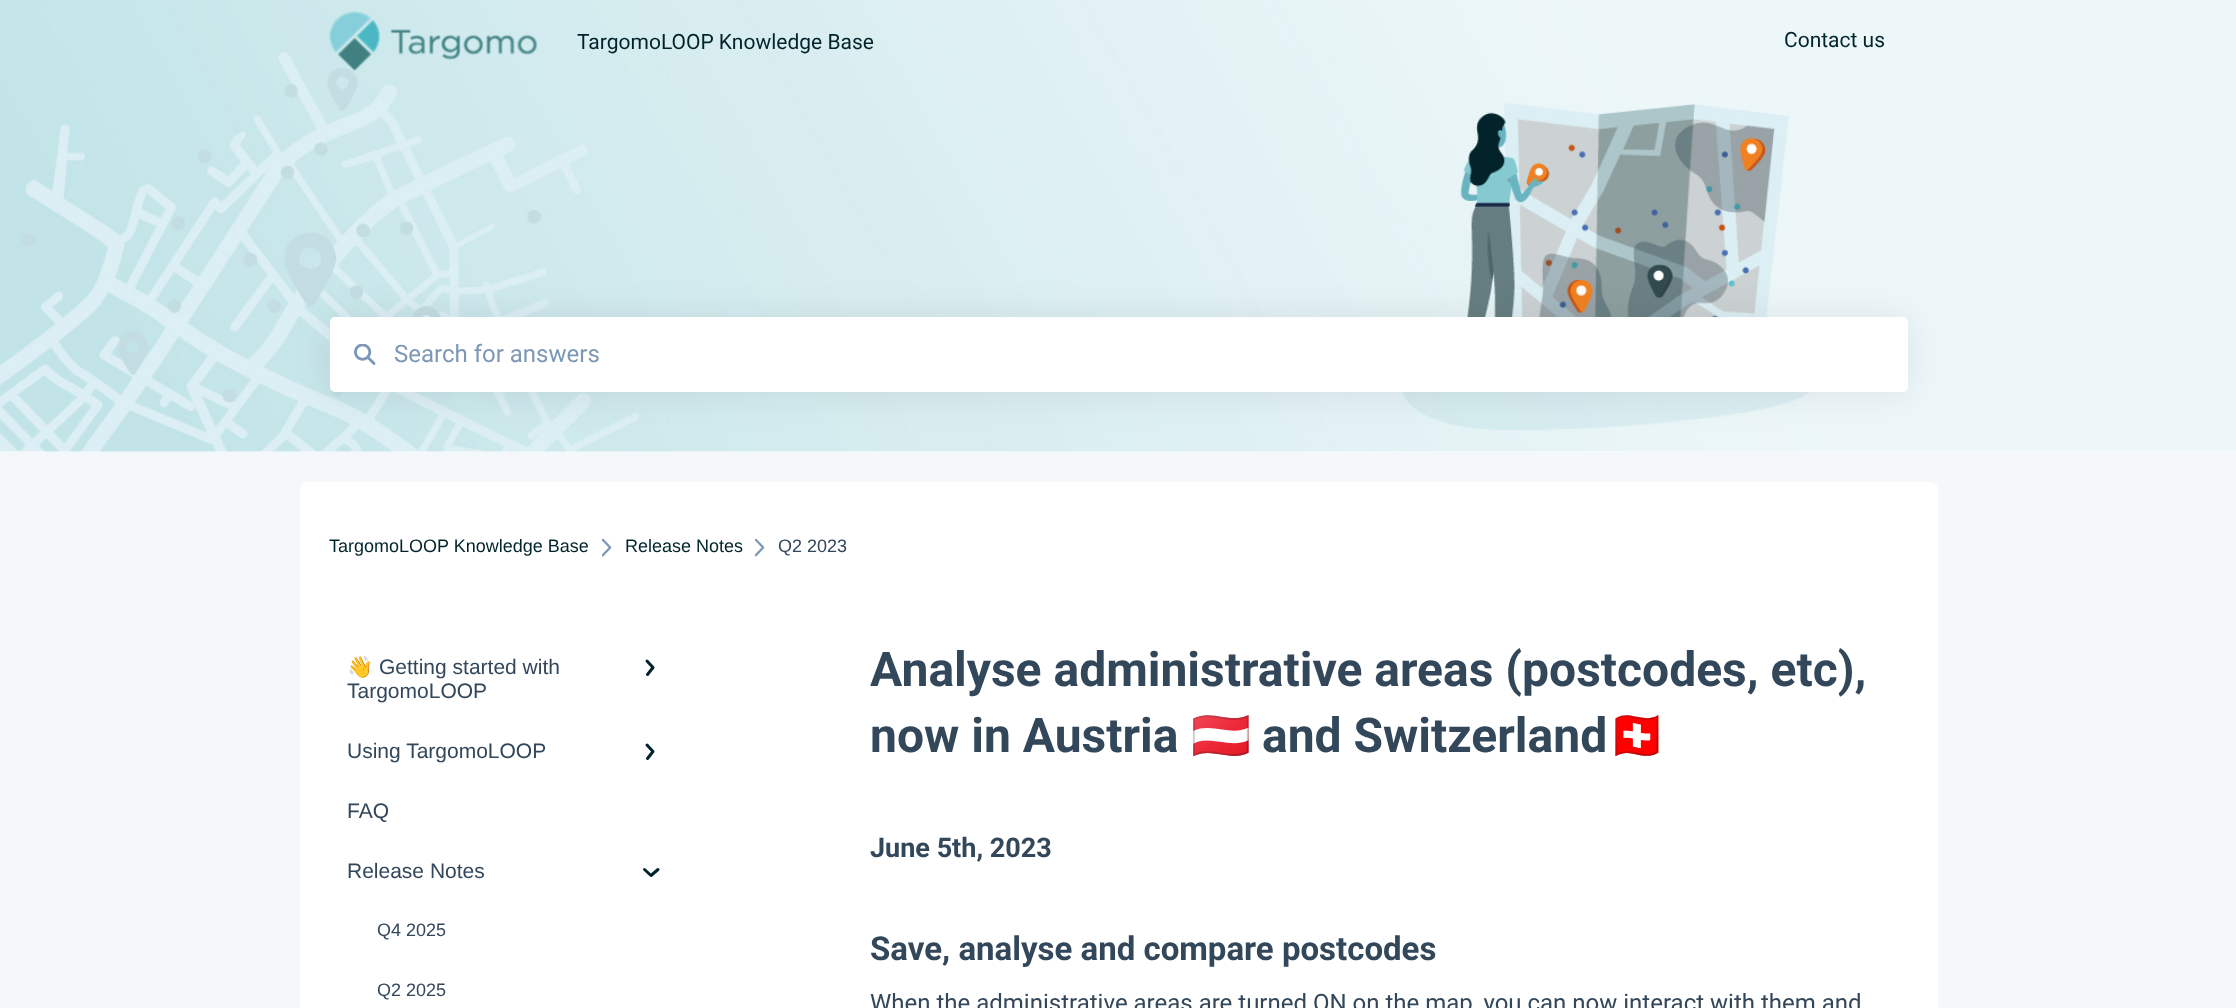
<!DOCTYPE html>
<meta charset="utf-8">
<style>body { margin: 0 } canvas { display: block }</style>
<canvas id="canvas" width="2236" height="1008"></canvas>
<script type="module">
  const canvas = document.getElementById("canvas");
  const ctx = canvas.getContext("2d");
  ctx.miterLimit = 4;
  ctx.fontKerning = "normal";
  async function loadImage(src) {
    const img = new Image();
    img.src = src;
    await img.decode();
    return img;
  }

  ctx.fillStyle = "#f5f8fa";
  ctx.fillRect(0, 0, 2236, 1008);
  ctx.fillStyle = "#ffffff";
  ctx.fillRect(0, 451, 2236, 1);
  ctx.drawImage(await loadImage("img2.png"), 0, 0, 2236, 452);
  ctx.drawImage(await loadImage("img1.png"), 329, 11, 209, 60);
  ctx.font = "21px Roboto";
  ctx.fillStyle = "#00242b";
  ctx.fillText("TargomoLOOP Knowledge Base", 577, 49);
  ctx.fillText("Contact us", 1784, 47);
  ctx.fillStyle = "rgba(0, 0, 0, 0.08)";
  ctx.filter = "blur(18px)";
  ctx.beginPath();
  ctx.roundRect(330, 318, 1578, 75, 5);
  ctx.fill();
  ctx.filter = "none";
  ctx.fillStyle = "#ffffff";
  ctx.beginPath();
  ctx.roundRect(330, 317, 1578, 75, 5);
  ctx.fill();
  ctx.drawImage(await loadImage("img3.png"), 354, 344, 22, 21);
  ctx.font = "24px Roboto";
  ctx.fillStyle = "#7c98b6";
  ctx.fillText("Search for answers", 394, 362);
  ctx.fillStyle = "#ffffff";
  ctx.beginPath();
  ctx.roundRect(300, 482, 1638, 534, 8);
  ctx.fill();
  ctx.font = "18px Liberation Sans";
  ctx.fillStyle = "#00242b";
  ctx.fillText("TargomoLOOP Knowledge Base", 329, 552);
  ctx.drawImage(await loadImage("img4.png"), 602, 539, 10, 18);
  ctx.fillText("Release Notes", 625, 552);
  ctx.drawImage(await loadImage("img4.png"), 755, 539, 10, 18);
  ctx.fillStyle = "#33475b";
  ctx.fillText("Q2 2023", 778, 552);
  ctx.font = "21px Noto Color Emoji";
  ctx.fillText("👋", 347, 674);
  ctx.font = "21px Liberation Sans";
  ctx.fillText("Getting started with", 379, 674);
  ctx.fillText("TargomoLOOP", 347, 698);
  ctx.beginPath();
  ctx.moveTo(647, 661);
  ctx.lineTo(653, 667.5);
  ctx.lineTo(647.5, 674.5);
  ctx.strokeStyle = "#00242b";
  ctx.lineWidth = 3;
  ctx.lineCap = "round";
  ctx.lineJoin = "round";
  ctx.stroke();
  ctx.fillText("Using TargomoLOOP", 347, 758);
  ctx.beginPath();
  ctx.moveTo(647, 745);
  ctx.lineTo(653, 751.5);
  ctx.lineTo(647.5, 758.5);
  ctx.stroke();
  ctx.fillText("FAQ", 347, 818);
  ctx.fillText("Release Notes", 347, 878);
  ctx.beginPath();
  ctx.moveTo(658, 869.5);
  ctx.lineTo(651, 875.5);
  ctx.lineTo(644.5, 869.5);
  ctx.stroke();
  ctx.font = "18px Liberation Sans";
  ctx.fillText("Q4 2025", 377, 936);
  ctx.fillText("Q2 2025", 377, 996);
  ctx.font = "bold 48px Roboto";
  ctx.fillText("Analyse administrative areas (postcodes, etc),", 870, 686);
  ctx.fillText("now in Austria", 870, 752);
  ctx.font = "bold 48px Noto Color Emoji";
  ctx.fillText("🇦🇹", 1191, 752);
  ctx.font = "bold 48px Roboto";
  ctx.fillText("and Switzerland", 1262, 752);
  ctx.font = "bold 48px Noto Color Emoji";
  ctx.fillText("🇨🇭", 1607, 752);
  ctx.font = "bold 27px Roboto";
  ctx.fillText("June 5th, 2023", 870, 857);
  ctx.font = "bold 33px Roboto";
  ctx.fillText("Save, analyse and compare postcodes", 870, 960);
  ctx.font = "24px Roboto";
  ctx.fillText("When the administrative areas are turned ON on the map, you can now interact with them and", 870, 1011);
</script>
